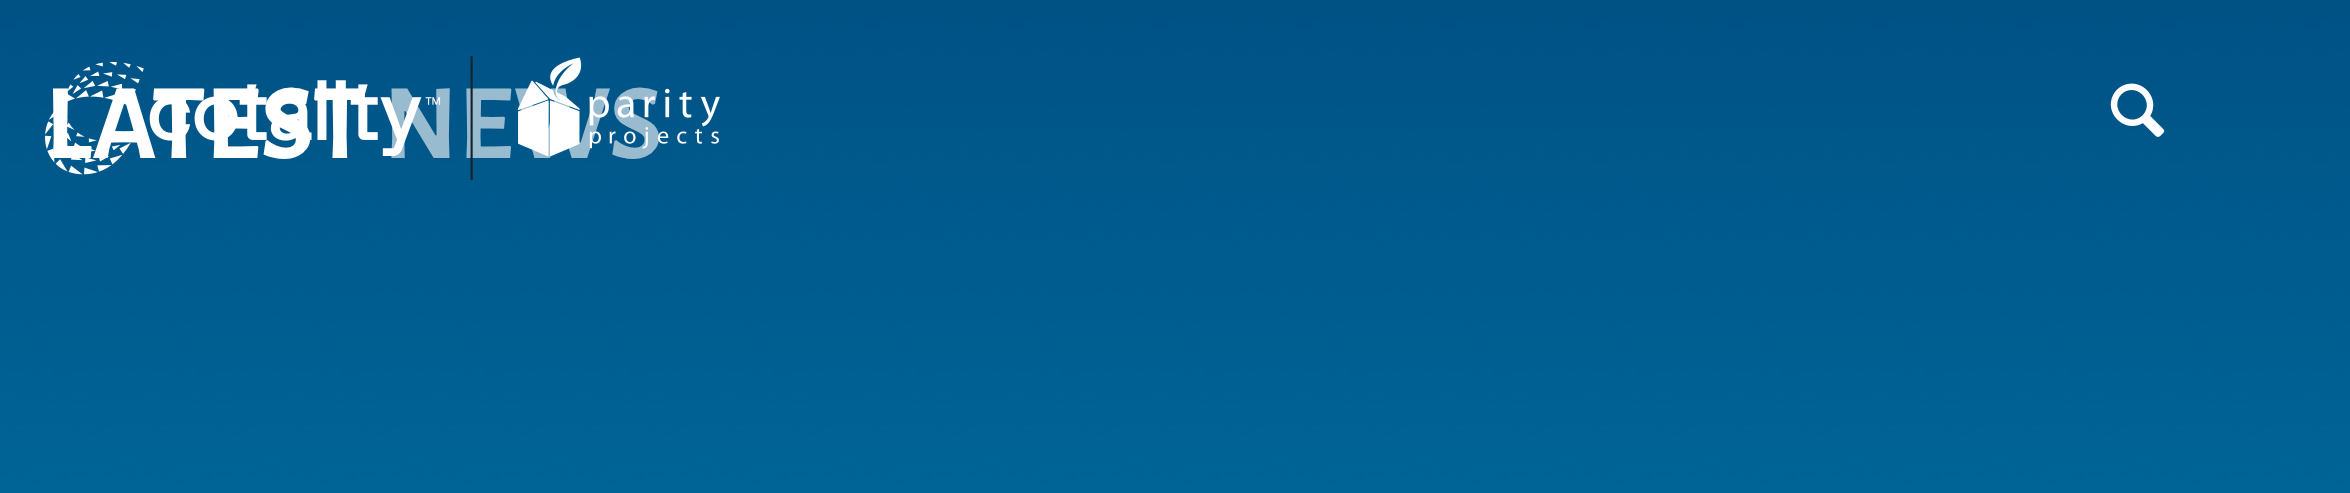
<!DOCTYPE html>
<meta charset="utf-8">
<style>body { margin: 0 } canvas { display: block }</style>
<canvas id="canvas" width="2350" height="493"></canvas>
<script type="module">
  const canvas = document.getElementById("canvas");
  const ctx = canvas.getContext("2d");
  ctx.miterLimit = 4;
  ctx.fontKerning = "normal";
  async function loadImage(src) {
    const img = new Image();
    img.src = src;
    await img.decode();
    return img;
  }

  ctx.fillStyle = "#ffffff";
  ctx.fillRect(0, 0, 2350, 493);
  ctx.drawImage(await loadImage("img3.png"), 0, 0, 2350, 493);
  ctx.font = "bold 108px Alegreya Sans";
  ctx.fillText("LATEST", 45, 158);
  ctx.fillStyle = "#99bbd0";
  ctx.fillText("NEWS", 383, 158);
  ctx.drawImage(await loadImage("img1.png"), 45, 56, 675, 124);
  ctx.drawImage(await loadImage("img2.png"), 2110, 83, 55, 54);
</script>
